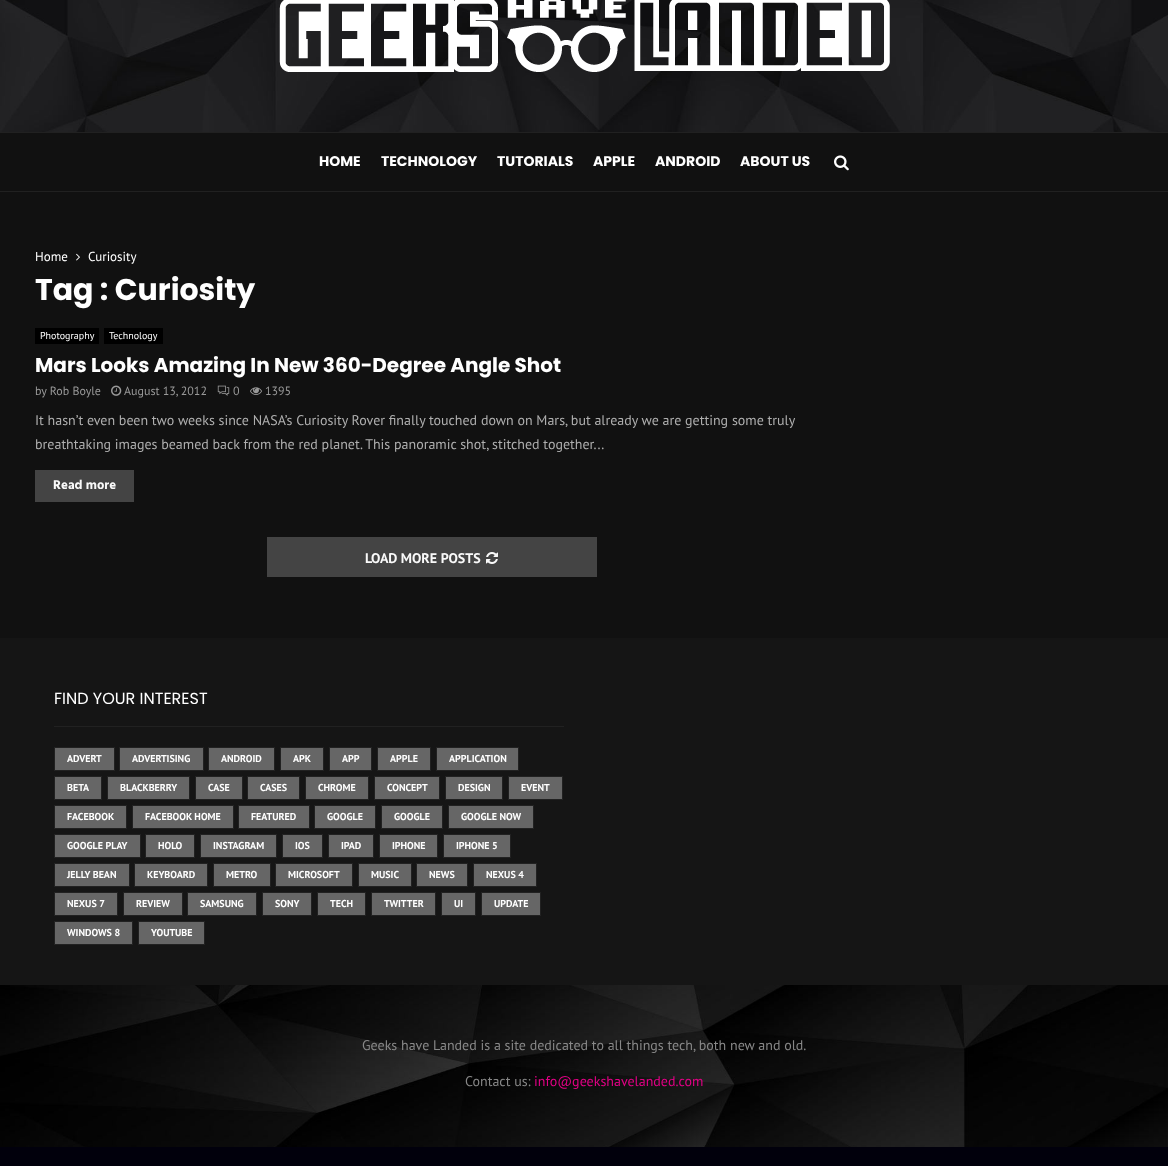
<!DOCTYPE html>
<meta charset="utf-8">
<style>body { margin: 0 } canvas { display: block }</style>
<canvas id="canvas" width="1168" height="1166"></canvas>
<script type="module">
  const canvas = document.getElementById("canvas");
  const ctx = canvas.getContext("2d");
  ctx.miterLimit = 4;
  ctx.fontKerning = "normal";
  async function loadImage(src) {
    const img = new Image();
    img.src = src;
    await img.decode();
    return img;
  }

  ctx.fillStyle = "#111111";
  ctx.fillRect(0, 0, 1168, 1166);
  ctx.drawImage(await loadImage("img1.png"), 0, 0, 1168, 132);
  ctx.drawImage(await loadImage("img2.png"), 279, 0, 611, 72);
  ctx.fillStyle = "#212121";
  ctx.fillRect(0, 191, 1168, 1);
  ctx.fillRect(0, 132, 1168, 1);
  ctx.font = "bold 14px Poppins";
  ctx.fillStyle = "#ffffff";
  ctx.fillText("HOME", 319, 166);
  ctx.fillText("TECHNOLOGY", 381, 166);
  ctx.fillText("TUTORIALS", 497, 166);
  ctx.fillText("APPLE", 593, 166);
  ctx.fillText("ANDROID", 655, 166);
  ctx.fillText("ABOUT US", 740, 166);
  ctx.drawImage(await loadImage("img3.png"), 834, 155, 15, 16);
  ctx.font = "13px PT Sans";
  ctx.fillText("Home", 35, 261);
  ctx.drawImage(await loadImage("img4.png"), 76, 253, 4, 8);
  ctx.fillText("Curiosity", 88, 261);
  ctx.font = "bold 30px Poppins";
  ctx.fillText("Tag : Curiosity", 35, 300);
  ctx.fillStyle = "#000000";
  ctx.fillRect(35, 328, 64, 16);
  ctx.font = "10px PT Sans";
  ctx.fillStyle = "#ffffff";
  ctx.fillText("Photography", 40, 339);
  ctx.fillStyle = "#000000";
  ctx.fillRect(104, 328, 59, 16);
  ctx.fillStyle = "#ffffff";
  ctx.fillText("Technology", 109, 339);
  ctx.font = "bold 20px Poppins";
  ctx.fillText("Mars Looks Amazing In New 360-Degree Angle Shot", 35, 372);
  ctx.font = "12px PT Sans";
  ctx.fillStyle = "#999999";
  ctx.fillText("by Rob Boyle", 35, 395);
  ctx.drawImage(await loadImage("img5.png"), 111, 385, 11, 11);
  ctx.fillText("August 13, 2012", 124, 395);
  ctx.drawImage(await loadImage("img6.png"), 217, 385, 13, 11);
  ctx.fillText("0", 233, 395);
  ctx.drawImage(await loadImage("img7.png"), 250, 387, 12, 8);
  ctx.fillText("1395", 265, 395);
  ctx.font = "14px PT Sans";
  ctx.fillStyle = "#afafaf";
  ctx.fillText("It hasn’t even been two weeks since NASA’s Curiosity Rover finally touched down on Mars, but already we are getting some truly", 35, 425);
  ctx.fillText("breathtaking images beamed back from the red planet. This panoramic shot, stitched together...", 35, 449);
  ctx.fillStyle = "#444444";
  ctx.fillRect(35, 470, 99, 32);
  ctx.font = "bold 13px Hind";
  ctx.fillStyle = "#f9f9f9";
  ctx.fillText("Read more", 53, 489);
  ctx.fillStyle = "#444444";
  ctx.fillRect(267, 537, 330, 40);
  ctx.font = "bold 14px PT Sans";
  ctx.fillStyle = "#f9f9f9";
  ctx.fillText("LOAD MORE POSTS", 365, 563);
  ctx.drawImage(await loadImage("img8.png"), 486, 552, 12, 12);
  ctx.drawImage(await loadImage("img9.png"), 0, 985, 1168, 162);
  ctx.fillStyle = "#151515";
  ctx.fillRect(0, 638, 1168, 347);
  ctx.fillStyle = "#212121";
  ctx.fillRect(54, 726, 510, 1);
  ctx.font = "16px Poppins";
  ctx.fillStyle = "#ffffff";
  ctx.fillText("FIND YOUR INTEREST", 54, 704);
  ctx.fillStyle = "#666666";
  ctx.beginPath();
  ctx.rect(54.5, 747.5, 60, 23);
  ctx.fill();
  ctx.strokeStyle = "#212121";
  ctx.stroke();
  ctx.font = "bold 10px PT Sans";
  ctx.fillStyle = "#ffffff";
  ctx.fillText("ADVERT", 67, 762);
  ctx.fillStyle = "#666666";
  ctx.beginPath();
  ctx.rect(119.5, 747.5, 84, 23);
  ctx.fill();
  ctx.stroke();
  ctx.fillStyle = "#ffffff";
  ctx.fillText("ADVERTISING", 132, 762);
  ctx.fillStyle = "#666666";
  ctx.beginPath();
  ctx.rect(208.5, 747.5, 66, 23);
  ctx.fill();
  ctx.stroke();
  ctx.fillStyle = "#ffffff";
  ctx.fillText("ANDROID", 221, 762);
  ctx.fillStyle = "#666666";
  ctx.beginPath();
  ctx.rect(280.5, 747.5, 43, 23);
  ctx.fill();
  ctx.stroke();
  ctx.fillStyle = "#ffffff";
  ctx.fillText("APK", 293, 762);
  ctx.fillStyle = "#666666";
  ctx.beginPath();
  ctx.rect(329.5, 747.5, 42, 23);
  ctx.fill();
  ctx.stroke();
  ctx.fillStyle = "#ffffff";
  ctx.fillText("APP", 342, 762);
  ctx.fillStyle = "#666666";
  ctx.beginPath();
  ctx.rect(377.5, 747.5, 53, 23);
  ctx.fill();
  ctx.stroke();
  ctx.fillStyle = "#ffffff";
  ctx.fillText("APPLE", 390, 762);
  ctx.fillStyle = "#666666";
  ctx.beginPath();
  ctx.rect(436.5, 747.5, 82, 23);
  ctx.fill();
  ctx.stroke();
  ctx.fillStyle = "#ffffff";
  ctx.fillText("APPLICATION", 449, 762);
  ctx.fillStyle = "#666666";
  ctx.beginPath();
  ctx.rect(54.5, 776.5, 47, 23);
  ctx.fill();
  ctx.stroke();
  ctx.fillStyle = "#ffffff";
  ctx.fillText("BETA", 67, 791);
  ctx.fillStyle = "#666666";
  ctx.beginPath();
  ctx.rect(107.5, 776.5, 82, 23);
  ctx.fill();
  ctx.stroke();
  ctx.fillStyle = "#ffffff";
  ctx.fillText("BLACKBERRY", 120, 791);
  ctx.fillStyle = "#666666";
  ctx.beginPath();
  ctx.rect(195.5, 776.5, 47, 23);
  ctx.fill();
  ctx.stroke();
  ctx.fillStyle = "#ffffff";
  ctx.fillText("CASE", 208, 791);
  ctx.fillStyle = "#666666";
  ctx.beginPath();
  ctx.rect(247.5, 776.5, 52, 23);
  ctx.fill();
  ctx.stroke();
  ctx.fillStyle = "#ffffff";
  ctx.fillText("CASES", 260, 791);
  ctx.fillStyle = "#666666";
  ctx.beginPath();
  ctx.rect(305.5, 776.5, 63, 23);
  ctx.fill();
  ctx.stroke();
  ctx.fillStyle = "#ffffff";
  ctx.fillText("CHROME", 318, 791);
  ctx.fillStyle = "#666666";
  ctx.beginPath();
  ctx.rect(374.5, 776.5, 65, 23);
  ctx.fill();
  ctx.stroke();
  ctx.fillStyle = "#ffffff";
  ctx.fillText("CONCEPT", 387, 791);
  ctx.fillStyle = "#666666";
  ctx.beginPath();
  ctx.rect(445.5, 776.5, 57, 23);
  ctx.fill();
  ctx.stroke();
  ctx.fillStyle = "#ffffff";
  ctx.fillText("DESIGN", 458, 791);
  ctx.fillStyle = "#666666";
  ctx.beginPath();
  ctx.rect(508.5, 776.5, 54, 23);
  ctx.fill();
  ctx.stroke();
  ctx.fillStyle = "#ffffff";
  ctx.fillText("EVENT", 521, 791);
  ctx.fillStyle = "#666666";
  ctx.beginPath();
  ctx.rect(54.5, 805.5, 72, 23);
  ctx.fill();
  ctx.stroke();
  ctx.fillStyle = "#ffffff";
  ctx.fillText("FACEBOOK", 67, 820);
  ctx.fillStyle = "#666666";
  ctx.beginPath();
  ctx.rect(132.5, 805.5, 101, 23);
  ctx.fill();
  ctx.stroke();
  ctx.fillStyle = "#ffffff";
  ctx.fillText("FACEBOOK HOME", 145, 820);
  ctx.fillStyle = "#666666";
  ctx.beginPath();
  ctx.rect(238.5, 805.5, 71, 23);
  ctx.fill();
  ctx.stroke();
  ctx.fillStyle = "#ffffff";
  ctx.fillText("FEATURED", 251, 820);
  ctx.fillStyle = "#666666";
  ctx.beginPath();
  ctx.rect(314.5, 805.5, 61, 23);
  ctx.fill();
  ctx.stroke();
  ctx.fillStyle = "#ffffff";
  ctx.fillText("GOOGLE", 327, 820);
  ctx.fillStyle = "#666666";
  ctx.beginPath();
  ctx.rect(381.5, 805.5, 61, 23);
  ctx.fill();
  ctx.stroke();
  ctx.fillStyle = "#ffffff";
  ctx.fillText("GOOGLE", 394, 820);
  ctx.fillStyle = "#666666";
  ctx.beginPath();
  ctx.rect(448.5, 805.5, 85, 23);
  ctx.fill();
  ctx.stroke();
  ctx.fillStyle = "#ffffff";
  ctx.fillText("GOOGLE NOW", 461, 820);
  ctx.fillStyle = "#666666";
  ctx.beginPath();
  ctx.rect(54.5, 834.5, 86, 23);
  ctx.fill();
  ctx.stroke();
  ctx.fillStyle = "#ffffff";
  ctx.fillText("GOOGLE PLAY", 67, 849);
  ctx.fillStyle = "#666666";
  ctx.beginPath();
  ctx.rect(145.5, 834.5, 49, 23);
  ctx.fill();
  ctx.stroke();
  ctx.fillStyle = "#ffffff";
  ctx.fillText("HOLO", 158, 849);
  ctx.fillStyle = "#666666";
  ctx.beginPath();
  ctx.rect(200.5, 834.5, 76, 23);
  ctx.fill();
  ctx.stroke();
  ctx.fillStyle = "#ffffff";
  ctx.fillText("INSTAGRAM", 213, 849);
  ctx.fillStyle = "#666666";
  ctx.beginPath();
  ctx.rect(282.5, 834.5, 40, 23);
  ctx.fill();
  ctx.stroke();
  ctx.fillStyle = "#ffffff";
  ctx.fillText("IOS", 295, 849);
  ctx.fillStyle = "#666666";
  ctx.beginPath();
  ctx.rect(328.5, 834.5, 45, 23);
  ctx.fill();
  ctx.stroke();
  ctx.fillStyle = "#ffffff";
  ctx.fillText("IPAD", 341, 849);
  ctx.fillStyle = "#666666";
  ctx.beginPath();
  ctx.rect(379.5, 834.5, 58, 23);
  ctx.fill();
  ctx.stroke();
  ctx.fillStyle = "#ffffff";
  ctx.fillText("IPHONE", 392, 849);
  ctx.fillStyle = "#666666";
  ctx.beginPath();
  ctx.rect(443.5, 834.5, 67, 23);
  ctx.fill();
  ctx.stroke();
  ctx.fillStyle = "#ffffff";
  ctx.fillText("IPHONE 5", 456, 849);
  ctx.fillStyle = "#666666";
  ctx.beginPath();
  ctx.rect(54.5, 863.5, 75, 23);
  ctx.fill();
  ctx.stroke();
  ctx.fillStyle = "#ffffff";
  ctx.fillText("JELLY BEAN", 67, 878);
  ctx.fillStyle = "#666666";
  ctx.beginPath();
  ctx.rect(134.5, 863.5, 73, 23);
  ctx.fill();
  ctx.stroke();
  ctx.fillStyle = "#ffffff";
  ctx.fillText("KEYBOARD", 147, 878);
  ctx.fillStyle = "#666666";
  ctx.beginPath();
  ctx.rect(213.5, 863.5, 57, 23);
  ctx.fill();
  ctx.stroke();
  ctx.fillStyle = "#ffffff";
  ctx.fillText("METRO", 226, 878);
  ctx.fillStyle = "#666666";
  ctx.beginPath();
  ctx.rect(275.5, 863.5, 77, 23);
  ctx.fill();
  ctx.stroke();
  ctx.fillStyle = "#ffffff";
  ctx.fillText("MICROSOFT", 288, 878);
  ctx.fillStyle = "#666666";
  ctx.beginPath();
  ctx.rect(358.5, 863.5, 53, 23);
  ctx.fill();
  ctx.stroke();
  ctx.fillStyle = "#ffffff";
  ctx.fillText("MUSIC", 371, 878);
  ctx.fillStyle = "#666666";
  ctx.beginPath();
  ctx.rect(416.5, 863.5, 51, 23);
  ctx.fill();
  ctx.stroke();
  ctx.fillStyle = "#ffffff";
  ctx.fillText("NEWS", 429, 878);
  ctx.fillStyle = "#666666";
  ctx.beginPath();
  ctx.rect(473.5, 863.5, 63, 23);
  ctx.fill();
  ctx.stroke();
  ctx.fillStyle = "#ffffff";
  ctx.fillText("NEXUS 4", 486, 878);
  ctx.fillStyle = "#666666";
  ctx.beginPath();
  ctx.rect(54.5, 892.5, 63, 23);
  ctx.fill();
  ctx.stroke();
  ctx.fillStyle = "#ffffff";
  ctx.fillText("NEXUS 7", 67, 907);
  ctx.fillStyle = "#666666";
  ctx.beginPath();
  ctx.rect(123.5, 892.5, 59, 23);
  ctx.fill();
  ctx.stroke();
  ctx.fillStyle = "#ffffff";
  ctx.fillText("REVIEW", 136, 907);
  ctx.fillStyle = "#666666";
  ctx.beginPath();
  ctx.rect(187.5, 892.5, 69, 23);
  ctx.fill();
  ctx.stroke();
  ctx.fillStyle = "#ffffff";
  ctx.fillText("SAMSUNG", 200, 907);
  ctx.fillStyle = "#666666";
  ctx.beginPath();
  ctx.rect(262.5, 892.5, 49, 23);
  ctx.fill();
  ctx.stroke();
  ctx.fillStyle = "#ffffff";
  ctx.fillText("SONY", 275, 907);
  ctx.fillStyle = "#666666";
  ctx.beginPath();
  ctx.rect(317.5, 892.5, 48, 23);
  ctx.fill();
  ctx.stroke();
  ctx.fillStyle = "#ffffff";
  ctx.fillText("TECH", 330, 907);
  ctx.fillStyle = "#666666";
  ctx.beginPath();
  ctx.rect(371.5, 892.5, 64, 23);
  ctx.fill();
  ctx.stroke();
  ctx.fillStyle = "#ffffff";
  ctx.fillText("TWITTER", 384, 907);
  ctx.fillStyle = "#666666";
  ctx.beginPath();
  ctx.rect(441.5, 892.5, 34, 23);
  ctx.fill();
  ctx.stroke();
  ctx.fillStyle = "#ffffff";
  ctx.fillText("UI", 454, 907);
  ctx.fillStyle = "#666666";
  ctx.beginPath();
  ctx.rect(481.5, 892.5, 59, 23);
  ctx.fill();
  ctx.stroke();
  ctx.fillStyle = "#ffffff";
  ctx.fillText("UPDATE", 494, 907);
  ctx.fillStyle = "#666666";
  ctx.beginPath();
  ctx.rect(54.5, 921.5, 78, 23);
  ctx.fill();
  ctx.stroke();
  ctx.fillStyle = "#ffffff";
  ctx.fillText("WINDOWS 8", 67, 936);
  ctx.fillStyle = "#666666";
  ctx.beginPath();
  ctx.rect(138.5, 921.5, 66, 23);
  ctx.fill();
  ctx.stroke();
  ctx.fillStyle = "#ffffff";
  ctx.fillText("YOUTUBE", 151, 936);
  ctx.font = "14px PT Sans";
  ctx.fillStyle = "#888888";
  ctx.fillText("Geeks have Landed is a site dedicated to all things tech, both new and old.", 362, 1050);
  ctx.fillText("Contact us:", 465, 1086);
  ctx.fillStyle = "#e20085";
  ctx.fillText("info@geekshavelanded.com", 534, 1086);
  ctx.fillStyle = "#01000c";
  ctx.fillRect(0, 1147, 1168, 19);
</script>
